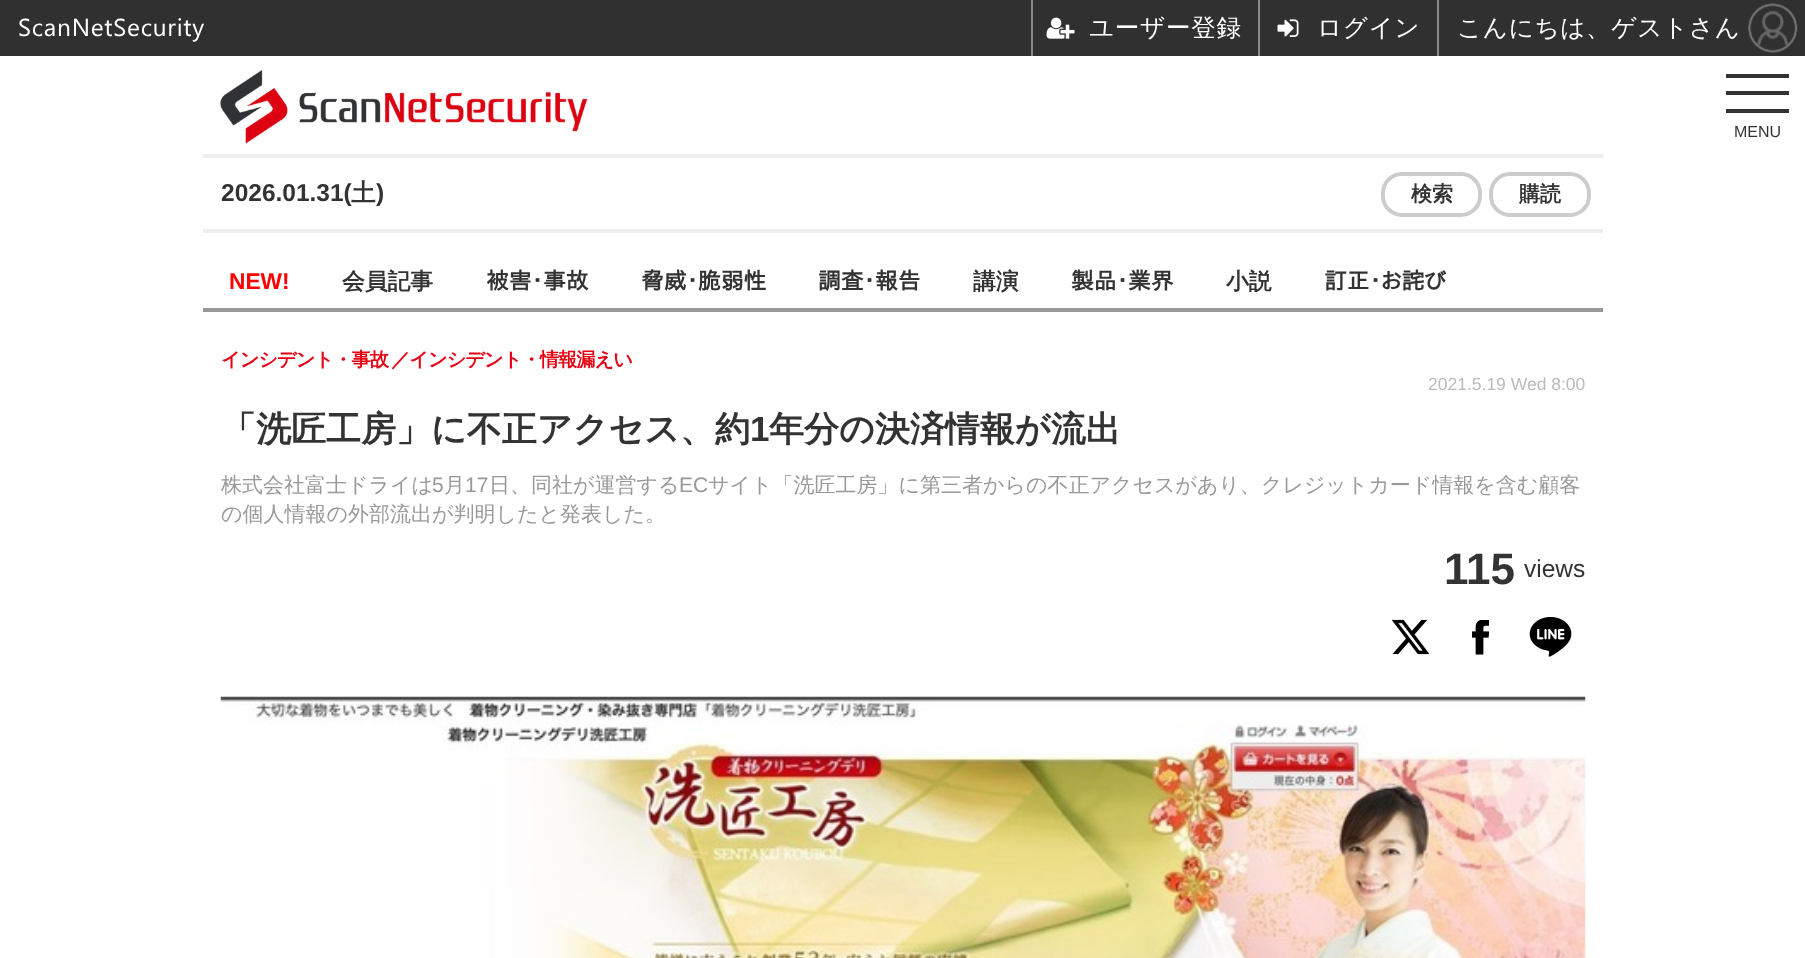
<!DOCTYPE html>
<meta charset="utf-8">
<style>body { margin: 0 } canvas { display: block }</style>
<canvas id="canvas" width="1805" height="958"></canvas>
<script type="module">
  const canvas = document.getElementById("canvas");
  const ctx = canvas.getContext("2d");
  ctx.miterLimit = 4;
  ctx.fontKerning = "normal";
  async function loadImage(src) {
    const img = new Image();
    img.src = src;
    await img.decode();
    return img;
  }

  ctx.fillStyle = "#ffffff";
  ctx.fillRect(0, 0, 1805, 958);
  ctx.fillStyle = "#303030";
  ctx.fillRect(0, 0, 1805, 56);
  ctx.letterSpacing = "0.75px";
  ctx.font = "24.5px Segoe UI";
  ctx.fillStyle = "#ffffff";
  ctx.fillText("ScanNetSecurity", 18, 36);
  ctx.fillStyle = "#888888";
  ctx.fillRect(1031, 0, 2, 56);
  ctx.drawImage(await loadImage("img1.png"), 1046, 17, 29, 22);
  ctx.font = "500 24.5px WenQuanYi Zen Hei";
  ctx.fillStyle = "#ffffff";
  ctx.fillText("ユーザー登録", 1089, 36);
  ctx.fillStyle = "#888888";
  ctx.fillRect(1437, 0, 2, 56);
  ctx.fillRect(1258, 0, 2, 56);
  ctx.drawImage(await loadImage("img2.png"), 1277, 19, 22, 18);
  ctx.fillStyle = "#ffffff";
  ctx.fillText("ログイン", 1317, 36);
  ctx.fillText("こんにちは、ゲストさん", 1457, 36);
  ctx.drawImage(await loadImage("img3.png"), 1748, 3, 50, 50);
  ctx.drawImage(await loadImage("img4.png"), 220, 70, 368, 74);
  ctx.fillStyle = "#333333";
  ctx.fillRect(1726, 74, 63, 4);
  ctx.fillRect(1726, 91, 63, 4);
  ctx.fillRect(1726, 109, 63, 4);
  ctx.letterSpacing = "0px";
  ctx.font = "16px Liberation Sans";
  ctx.fillText("MENU", 1734, 137);
  ctx.fillStyle = "#eeeeee";
  ctx.fillRect(203, 154, 1400, 4);
  ctx.fillRect(203, 229, 1400, 4);
  ctx.font = "bold 24.5px Liberation Sans";
  ctx.fillStyle = "#333333";
  ctx.fillText("2026.01.31(", 221, 201);
  ctx.font = "bold 24.5px WenQuanYi Zen Hei";
  ctx.fillText("土", 351, 201);
  ctx.font = "bold 24.5px Liberation Sans";
  ctx.fillText(")", 376, 201);
  ctx.beginPath();
  ctx.roundRect(1383, 174, 97, 41, 19);
  ctx.strokeStyle = "#cccccc";
  ctx.lineWidth = 4;
  ctx.stroke();
  ctx.font = "bold 21px WenQuanYi Zen Hei";
  ctx.fillText("検索", 1411, 201);
  ctx.beginPath();
  ctx.roundRect(1491, 174, 98, 41, 19);
  ctx.stroke();
  ctx.fillText("購読", 1519, 201);
  ctx.fillStyle = "#999999";
  ctx.fillRect(203, 308, 1400, 4);
  ctx.font = "bold 22.75px Liberation Sans";
  ctx.fillStyle = "#ff0000";
  ctx.fillText("NEW!", 229, 289);
  ctx.font = "bold 22.75px WenQuanYi Zen Hei";
  ctx.fillStyle = "#333333";
  ctx.fillText("会員記事", 342, 289);
  ctx.font = "bold 22.75px IPAPGothic";
  ctx.fillText("被害･事故", 486, 289);
  ctx.fillText("脅威･脆弱性", 641, 289);
  ctx.fillText("調査･報告", 818, 289);
  ctx.font = "bold 22.75px WenQuanYi Zen Hei";
  ctx.fillText("講演", 973, 289);
  ctx.font = "bold 22.75px IPAPGothic";
  ctx.fillText("製品･業界", 1071, 289);
  ctx.font = "bold 22.75px WenQuanYi Zen Hei";
  ctx.fillText("小説", 1226, 289);
  ctx.font = "bold 22.75px IPAPGothic";
  ctx.fillText("訂正･お詫び", 1324, 289);
  ctx.letterSpacing = "-1px";
  ctx.font = "bold 19.25px WenQuanYi Zen Hei";
  ctx.fillStyle = "#e60012";
  ctx.fillText("インシデント・事故", 221, 366);
  ctx.fillText("／インシデント・情報漏えい", 391, 366);
  ctx.letterSpacing = "0px";
  ctx.font = "17.5px Liberation Sans";
  ctx.fillStyle = "#bbbbbb";
  ctx.fillText("2021.5.19 Wed 8:00", 1428, 390);
  ctx.font = "bold 35px WenQuanYi Zen Hei";
  ctx.fillStyle = "#333333";
  ctx.fillText("「洗匠工房」に不正アクセス、約", 221, 441);
  ctx.font = "bold 35px Liberation Sans";
  ctx.fillText("1", 750, 441);
  ctx.font = "bold 35px WenQuanYi Zen Hei";
  ctx.fillText("年分の決済情報が流出", 769, 441);
  ctx.font = "500 21px WenQuanYi Zen Hei";
  ctx.fillStyle = "#999999";
  ctx.fillText("株式会社富士ドライは", 221, 492);
  ctx.font = "21px Liberation Sans";
  ctx.fillText("5", 432, 492);
  ctx.font = "500 21px WenQuanYi Zen Hei";
  ctx.fillText("月", 444, 492);
  ctx.font = "21px Liberation Sans";
  ctx.fillText("17", 465, 492);
  ctx.font = "500 21px WenQuanYi Zen Hei";
  ctx.fillText("日、同社が運営する", 489, 492);
  ctx.font = "21px Liberation Sans";
  ctx.fillText("EC", 679, 492);
  ctx.font = "500 21px WenQuanYi Zen Hei";
  ctx.fillText("サイト「洗匠工房」に第三者からの不正アクセスがあり、クレジットカード情報を含む顧客", 708, 492);
  ctx.fillText("の個人情報の外部流出が判明したと発表した。", 221, 521);
  ctx.font = "bold 44px Liberation Sans";
  ctx.fillStyle = "#333333";
  ctx.fillText("115", 1444, 584);
  ctx.font = "24.5px Liberation Sans";
  ctx.fillText("views", 1524, 577);
  ctx.drawImage(await loadImage("img5.png"), 1391, 619, 39, 36);
  ctx.drawImage(await loadImage("img6.png"), 1472, 620, 17, 35);
  ctx.drawImage(await loadImage("img7.png"), 1529, 617, 43, 40);
  ctx.drawImage(await loadImage("img8.png"), 220, 696, 1366, 262);
</script>
